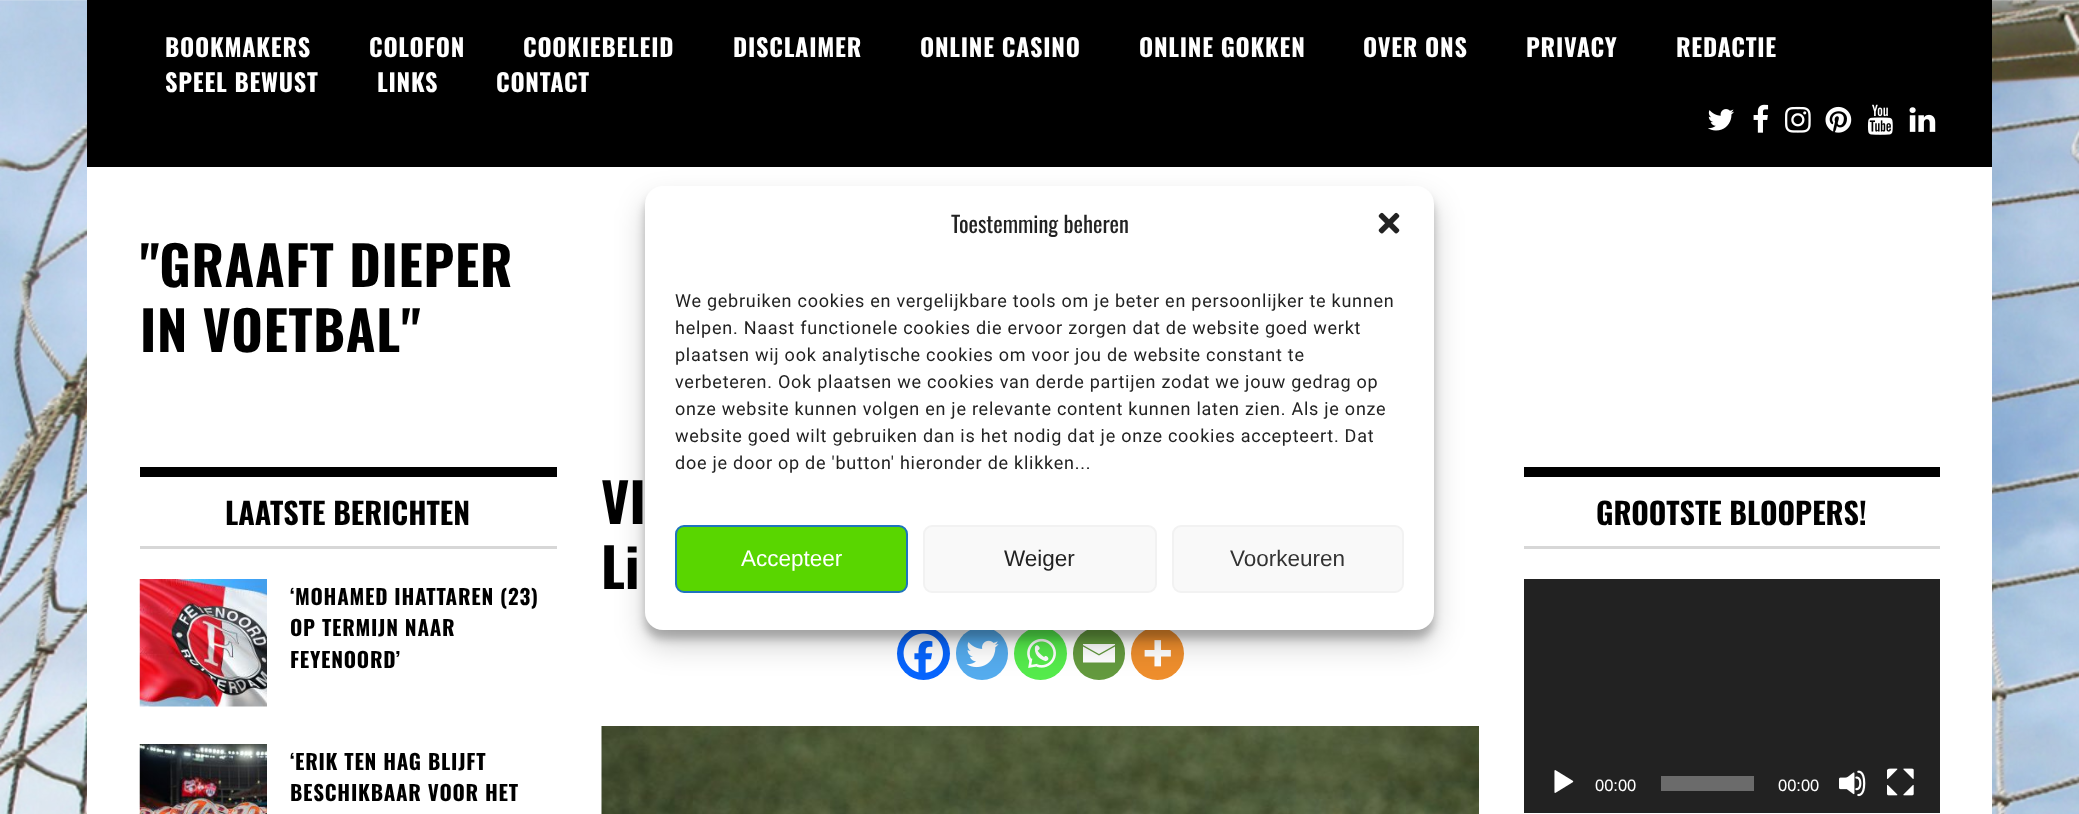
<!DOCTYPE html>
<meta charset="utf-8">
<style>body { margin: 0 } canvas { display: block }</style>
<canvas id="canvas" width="2079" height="814"></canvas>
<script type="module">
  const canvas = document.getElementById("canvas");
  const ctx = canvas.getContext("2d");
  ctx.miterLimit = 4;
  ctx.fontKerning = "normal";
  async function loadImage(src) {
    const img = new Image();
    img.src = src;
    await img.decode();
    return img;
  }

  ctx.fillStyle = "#ffffff";
  ctx.fillRect(0, 0, 2079, 814);
  ctx.drawImage(await loadImage("img1.png"), 0, 0, 2079, 814);
  ctx.fillRect(87, 167, 1905, 647);
  ctx.fillStyle = "#000000";
  ctx.fillRect(87, 0, 1905, 167);
  ctx.letterSpacing = "0.75px";
  ctx.font = "bold 24.25px Oswald";
  ctx.fillStyle = "#ffffff";
  ctx.fillText("BOOKMAKERS", 165, 57);
  ctx.fillText("COLOFON", 369, 57);
  ctx.fillText("COOKIEBELEID", 523, 57);
  ctx.fillText("DISCLAIMER", 733, 57);
  ctx.fillText("ONLINE CASINO", 920, 57);
  ctx.fillText("ONLINE GOKKEN", 1139, 57);
  ctx.fillText("OVER ONS", 1363, 57);
  ctx.fillText("PRIVACY", 1526, 57);
  ctx.fillText("REDACTIE", 1676, 57);
  ctx.fillText("SPEEL BEWUST", 165, 92);
  ctx.fillText("LINKS", 377, 92);
  ctx.fillText("CONTACT", 496, 92);
  ctx.drawImage(await loadImage("img2.png"), 1708, 109, 26, 22);
  ctx.drawImage(await loadImage("img3.png"), 1753, 104, 16, 29);
  ctx.drawImage(await loadImage("img4.png"), 1785, 106, 26, 27);
  ctx.drawImage(await loadImage("img5.png"), 1825, 106, 27, 27);
  ctx.drawImage(await loadImage("img6.png"), 1867, 104, 26, 31);
  ctx.drawImage(await loadImage("img7.png"), 1909, 107, 27, 25);
  ctx.font = "bold 54px Oswald";
  ctx.fillStyle = "#000000";
  ctx.fillText("\"GRAAFT DIEPER", 140, 287);
  ctx.fillText("IN VOETBAL\"", 140, 352);
  ctx.fillRect(140, 467, 417, 10);
  ctx.fillStyle = "#d7d7d7";
  ctx.fillRect(140, 546, 417, 3);
  ctx.letterSpacing = "0px";
  ctx.font = "bold 30px Oswald";
  ctx.fillStyle = "#000000";
  ctx.fillText("LAATSTE BERICHTEN", 225, 525);
  ctx.drawImage(await loadImage("img8.png"), 139, 579, 128, 128);
  ctx.letterSpacing = "0.75px";
  ctx.font = "bold 21px Oswald";
  ctx.fillText("‘MOHAMED IHATTAREN (23)", 290, 605);
  ctx.fillText("OP TERMIJN NAAR", 290, 636);
  ctx.fillText("FEYENOORD’", 290, 668);
  ctx.drawImage(await loadImage("img9.png"), 139, 744, 128, 70);
  ctx.fillText("‘ERIK TEN HAG BLIJFT", 290, 770);
  ctx.fillText("BESCHIKBAAR VOOR HET", 290, 801);
  ctx.letterSpacing = "0px";
  ctx.font = "bold 54px Oswald";
  ctx.fillText("VI", 601, 524);
  ctx.fillText("Li", 601, 589);
  ctx.fillStyle = "#0765fe";
  ctx.beginPath();
  ctx.arc(923.5, 653.5, 26.5, 0, Math.PI * 2);
  ctx.fill();
  ctx.drawImage(await loadImage("img10.png"), 903, 633, 40, 40);
  ctx.fillStyle = "#55acee";
  ctx.beginPath();
  ctx.roundRect(956, 627, 52, 53, 26);
  ctx.fill();
  ctx.drawImage(await loadImage("img11.png"), 966, 640, 33, 28);
  ctx.fillStyle = "#55eb4c";
  ctx.beginPath();
  ctx.arc(1040.5, 653.5, 26.5, 0, Math.PI * 2);
  ctx.fill();
  ctx.drawImage(await loadImage("img12.png"), 1027, 638, 29, 30);
  ctx.fillStyle = "#649a3f";
  ctx.beginPath();
  ctx.roundRect(1073, 627, 52, 53, 26);
  ctx.fill();
  ctx.fillStyle = "#ffffff";
  ctx.beginPath();
  ctx.moveTo(1081.5, 644);
  ctx.lineTo(1115, 644);
  ctx.lineTo(1115, 645);
  ctx.lineTo(1099, 654);
  ctx.lineTo(1083, 645);
  ctx.lineTo(1083, 644);
  ctx.moveTo(1083, 646.5);
  ctx.lineTo(1099, 655.5);
  ctx.lineTo(1115, 646.5);
  ctx.lineTo(1115, 662.5);
  ctx.lineTo(1083, 662.5);
  ctx.lineTo(1083, 646.5);
  ctx.fill();
  ctx.fillStyle = "#ee8e2d";
  ctx.beginPath();
  ctx.arc(1157.5, 653.5, 26.5, 0, Math.PI * 2);
  ctx.fill();
  ctx.drawImage(await loadImage("img13.png"), 1144, 640, 27, 27);
  ctx.drawImage(await loadImage("img14.png"), 601, 726, 878, 88);
  ctx.fillStyle = "#000000";
  ctx.fillRect(1524, 467, 416, 10);
  ctx.fillStyle = "#d7d7d7";
  ctx.fillRect(1524, 546, 416, 3);
  ctx.font = "bold 30px Oswald";
  ctx.fillStyle = "#000000";
  ctx.fillText("GROOTSTE BLOOPERS!", 1596, 525);
  ctx.fillStyle = "#222222";
  ctx.fillRect(1524, 579, 416, 234);
  ctx.drawImage(await loadImage("img15.png"), 1554, 770, 20, 23);
  ctx.font = "16.5px Liberation Sans";
  ctx.fillStyle = "#ffffff";
  ctx.fillText("00:00", 1595, 791);
  ctx.fillStyle = "#6b6b6b";
  ctx.fillRect(1661, 776, 93, 15);
  ctx.fillStyle = "#ffffff";
  ctx.fillText("00:00", 1778, 791);
  ctx.drawImage(await loadImage("img16.png"), 1839, 770, 27, 27);
  ctx.drawImage(await loadImage("img17.png"), 1887, 768, 27, 28);
  ctx.fillStyle = "rgba(0, 0, 0, 0.23)";
  ctx.filter = "blur(4.5px)";
  ctx.beginPath();
  ctx.roundRect(645, 195, 789, 444, 18);
  ctx.fill();
  ctx.filter = "none";
  ctx.fillStyle = "rgba(0, 0, 0, 0.19)";
  ctx.filter = "blur(15px)";
  ctx.beginPath();
  ctx.roundRect(645, 201, 789, 444, 18);
  ctx.fill();
  ctx.filter = "none";
  ctx.fillStyle = "#ffffff";
  ctx.beginPath();
  ctx.roundRect(645, 186, 789, 444, 18);
  ctx.fill();
  ctx.font = "22.5px Oswald";
  ctx.fillStyle = "#222222";
  ctx.fillText("Toestemming beheren", 951, 233);
  ctx.drawImage(await loadImage("img18.png"), 1378, 212, 22, 22);
  ctx.letterSpacing = "0.75px";
  ctx.font = "18px Roboto";
  ctx.fillText("We gebruiken cookies en vergelijkbare tools om je beter en persoonlijker te kunnen", 675, 307);
  ctx.fillText("helpen. Naast functionele cookies die ervoor zorgen dat de website goed werkt", 675, 334);
  ctx.fillText("plaatsen wij ook analytische cookies om voor jou de website constant te", 675, 361);
  ctx.fillText("verbeteren. Ook plaatsen we cookies van derde partijen zodat we jouw gedrag op", 675, 388);
  ctx.fillText("onze website kunnen volgen en je relevante content kunnen laten zien. Als je onze", 675, 415);
  ctx.fillText("website goed wilt gebruiken dan is het nodig dat je onze cookies accepteert. Dat", 675, 442);
  ctx.fillText("doe je door op de 'button' hieronder de klikken...", 675, 469);
  ctx.fillStyle = "#59d600";
  ctx.beginPath();
  ctx.roundRect(676, 526, 231, 66, 8);
  ctx.fill();
  ctx.strokeStyle = "#1e73be";
  ctx.lineWidth = 2;
  ctx.stroke();
  ctx.letterSpacing = "0px";
  ctx.font = "22.5px Liberation Sans";
  ctx.fillStyle = "#ffffff";
  ctx.fillText("Accepteer", 741, 566);
  ctx.fillStyle = "#f9f9f9";
  ctx.beginPath();
  ctx.roundRect(924, 526, 232, 66, 8);
  ctx.fill();
  ctx.strokeStyle = "#f2f2f2";
  ctx.stroke();
  ctx.fillStyle = "#222222";
  ctx.fillText("Weiger", 1004, 566);
  ctx.fillStyle = "#f9f9f9";
  ctx.beginPath();
  ctx.roundRect(1173, 526, 230, 66, 8);
  ctx.fill();
  ctx.stroke();
  ctx.fillStyle = "#333333";
  ctx.fillText("Voorkeuren", 1230, 566);
</script>
